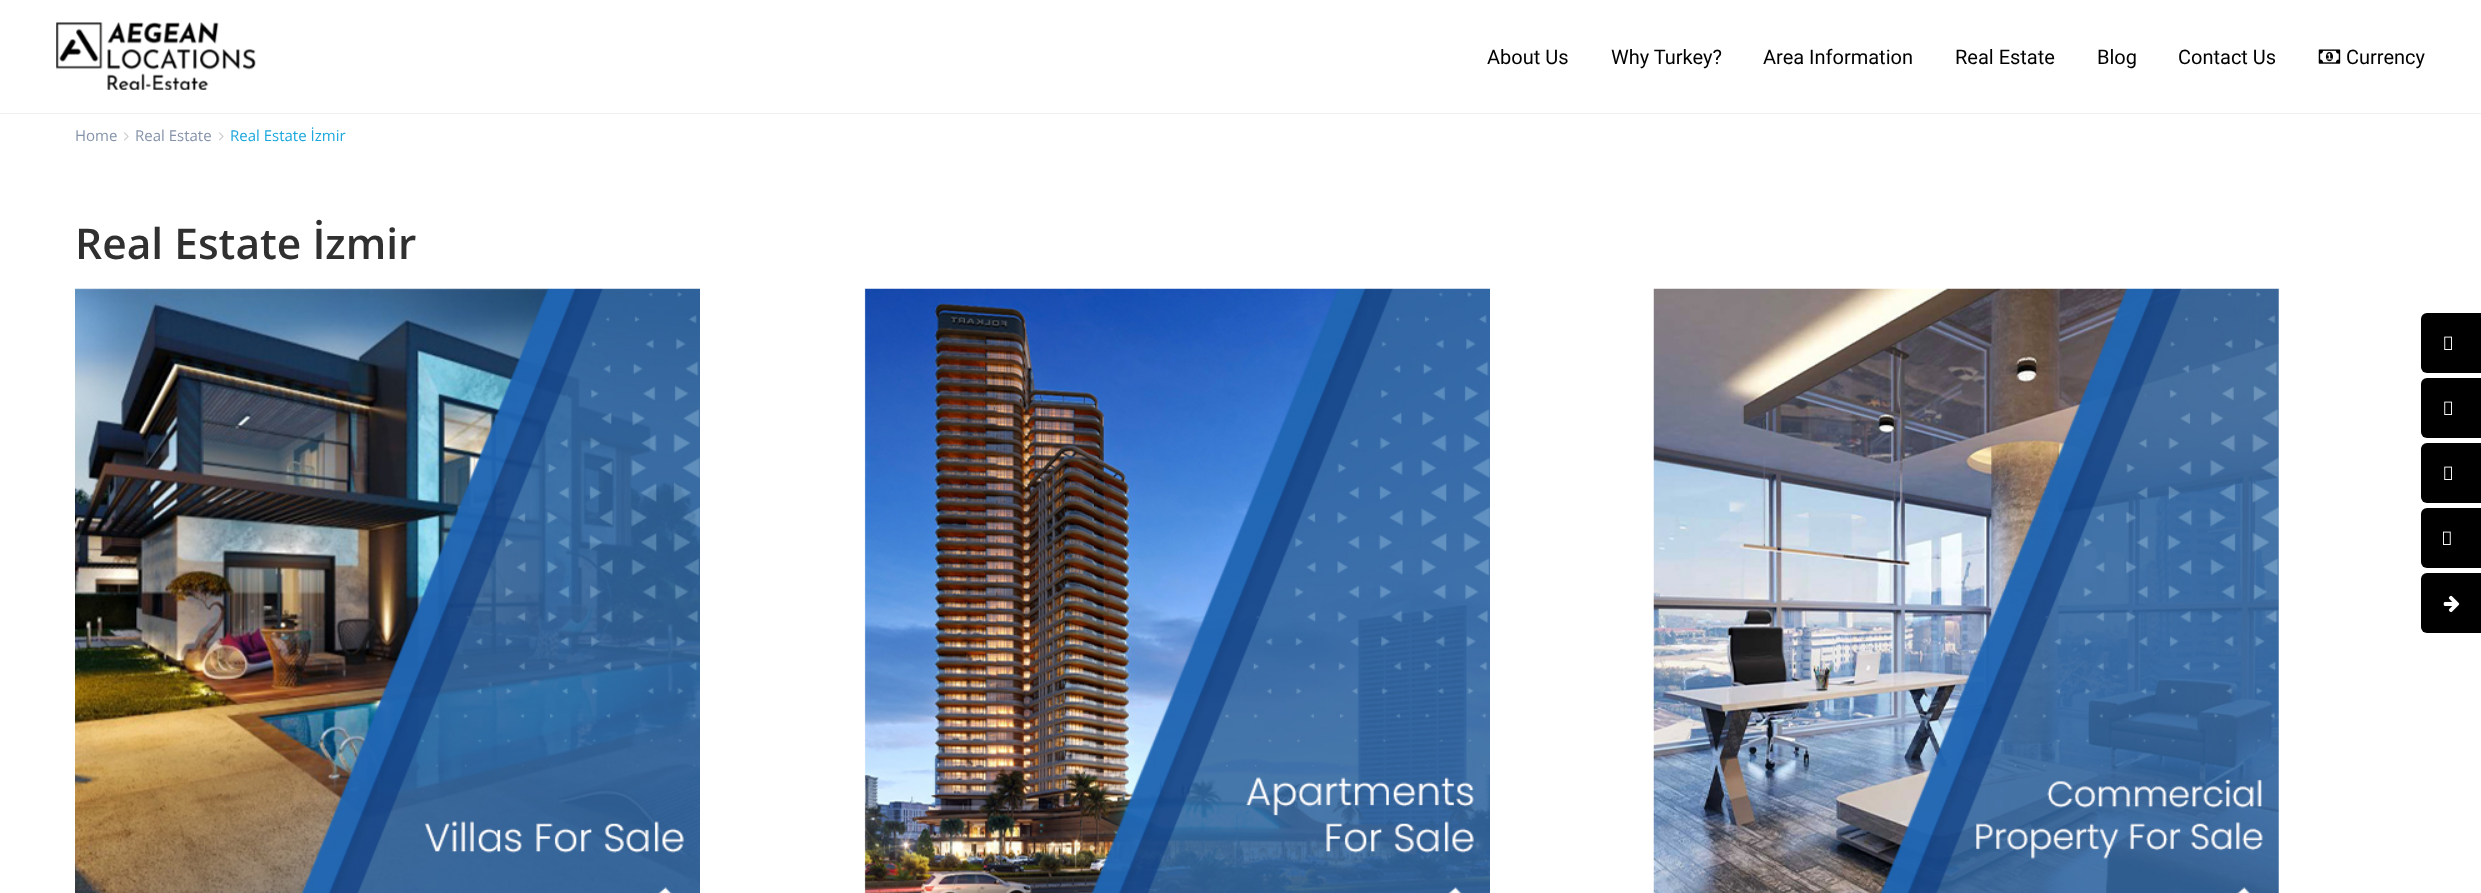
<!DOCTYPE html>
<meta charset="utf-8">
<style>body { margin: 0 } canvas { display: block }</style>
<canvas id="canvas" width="2481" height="893"></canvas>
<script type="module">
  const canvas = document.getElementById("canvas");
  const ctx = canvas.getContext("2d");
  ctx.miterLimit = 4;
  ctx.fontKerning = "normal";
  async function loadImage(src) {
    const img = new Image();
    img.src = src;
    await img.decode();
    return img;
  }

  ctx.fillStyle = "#ffffff";
  ctx.fillRect(0, 0, 2481, 893);
  ctx.fillStyle = "#f0f0f0";
  ctx.fillRect(0, 113, 2481, 1);
  ctx.drawImage(await loadImage("img1.png"), 56, 22, 200, 68);
  ctx.font = "20px Roboto";
  ctx.fillStyle = "#000000";
  ctx.fillText("About Us", 1487, 64);
  ctx.fillText("Why Turkey?", 1611, 64);
  ctx.fillText("Area Information", 1763, 64);
  ctx.fillText("Real Estate", 1955, 64);
  ctx.fillText("Blog", 2097, 64);
  ctx.fillText("Contact Us", 2178, 64);
  ctx.drawImage(await loadImage("img2.png"), 2318, 49, 23, 15);
  ctx.fillText("Currency", 2346, 64);
  ctx.font = "15px Open Sans";
  ctx.fillStyle = "#8593a9";
  ctx.fillText("Home", 75, 141);
  ctx.drawImage(await loadImage("img3.png"), 124, 132, 5, 9);
  ctx.fillText("Real Estate", 135, 141);
  ctx.drawImage(await loadImage("img3.png"), 219, 132, 5, 9);
  ctx.fillStyle = "#1ca8dd";
  ctx.fillText("Real Estate İzmir", 230, 141);
  ctx.font = "600 42.5px Open Sans";
  ctx.fillStyle = "#303030";
  ctx.fillText("Real Estate İzmir", 75, 259);
  ctx.drawImage(await loadImage("img4.png"), 75, 288, 625, 605);
  ctx.drawImage(await loadImage("img5.png"), 864, 288, 626, 605);
  ctx.drawImage(await loadImage("img6.png"), 1653, 288, 626, 605);
  ctx.fillStyle = "#000000";
  ctx.beginPath();
  ctx.roundRect(2421, 313, 60, 60, [6, 0, 0, 6]);
  ctx.fill();
  ctx.drawImage(await loadImage("img7.png"), 2444, 336, 8, 14);
  ctx.beginPath();
  ctx.roundRect(2421, 378, 60, 60, [6, 0, 0, 6]);
  ctx.fill();
  ctx.drawImage(await loadImage("img7.png"), 2444, 401, 8, 14);
  ctx.beginPath();
  ctx.roundRect(2421, 443, 60, 60, [6, 0, 0, 6]);
  ctx.fill();
  ctx.drawImage(await loadImage("img7.png"), 2444, 466, 8, 14);
  ctx.beginPath();
  ctx.roundRect(2421, 508, 60, 60, [6, 0, 0, 6]);
  ctx.fill();
  ctx.drawImage(await loadImage("img8.png"), 2443, 531, 8, 14);
  ctx.beginPath();
  ctx.roundRect(2421, 573, 60, 60, [6, 0, 0, 6]);
  ctx.fill();
  ctx.drawImage(await loadImage("img9.png"), 2443, 595, 17, 18);
</script>
